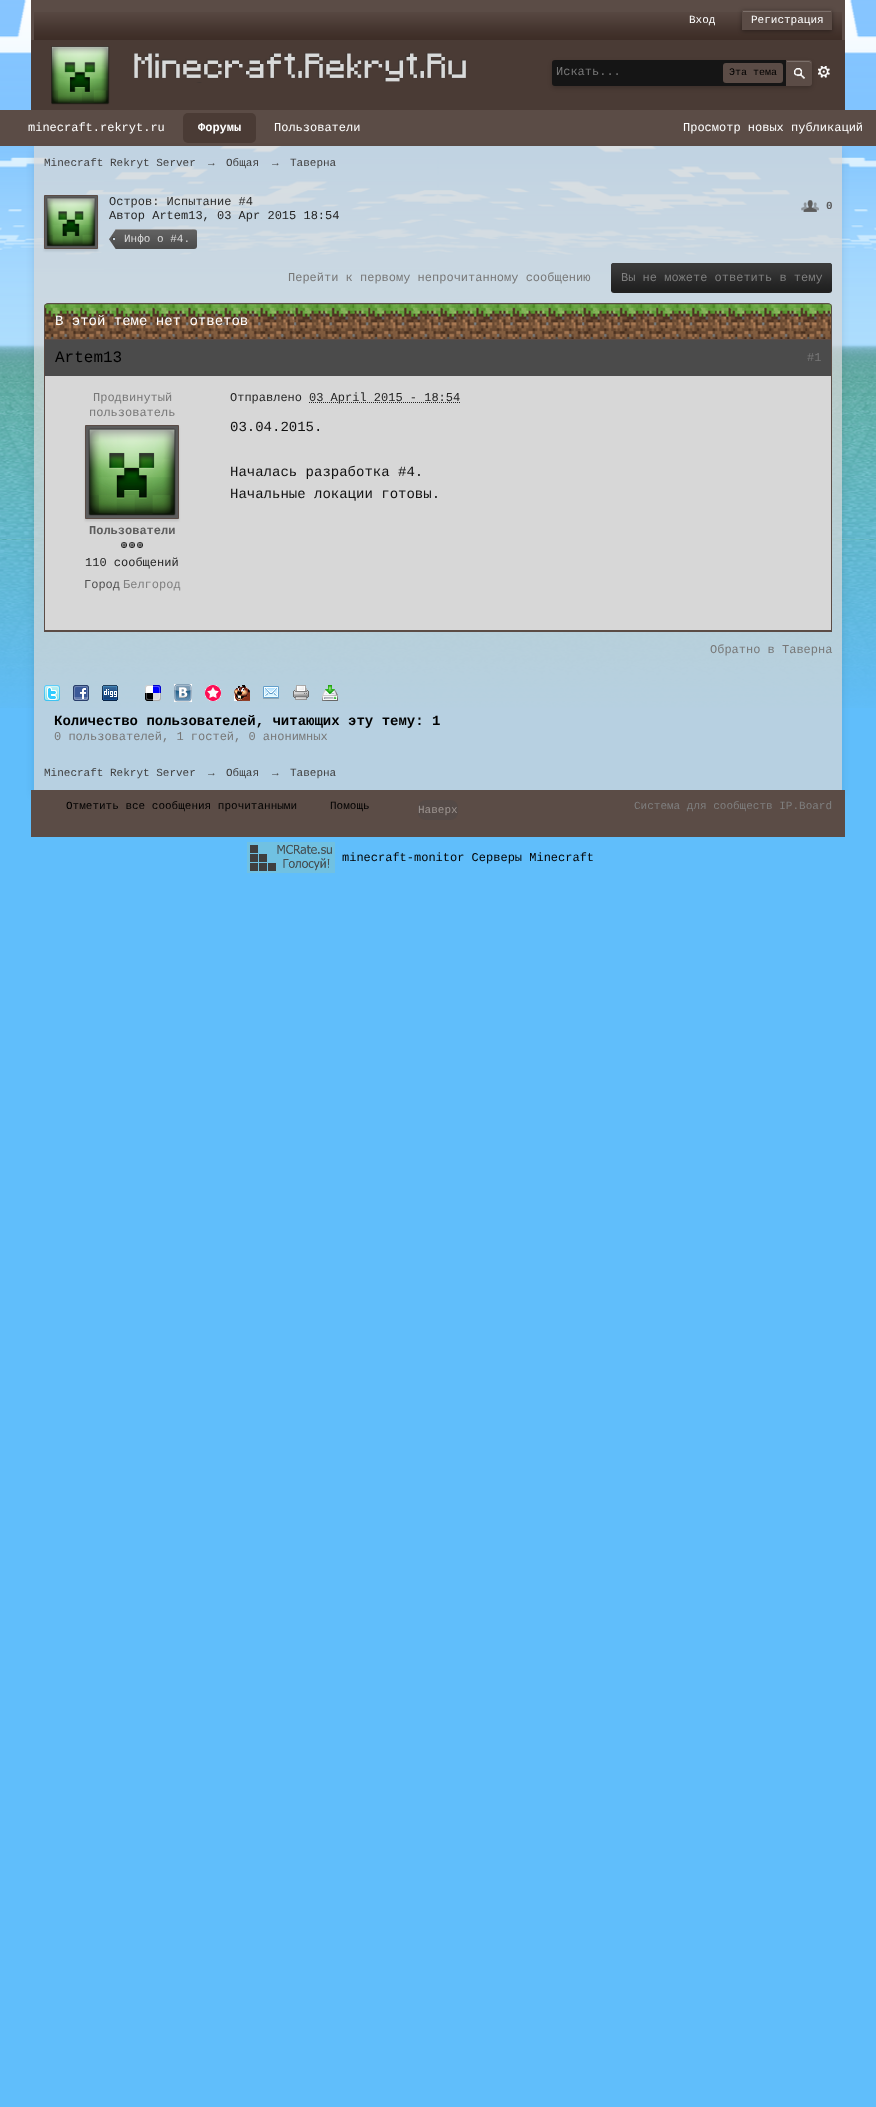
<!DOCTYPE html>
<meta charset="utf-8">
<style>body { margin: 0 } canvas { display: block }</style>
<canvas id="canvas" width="876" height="2107"></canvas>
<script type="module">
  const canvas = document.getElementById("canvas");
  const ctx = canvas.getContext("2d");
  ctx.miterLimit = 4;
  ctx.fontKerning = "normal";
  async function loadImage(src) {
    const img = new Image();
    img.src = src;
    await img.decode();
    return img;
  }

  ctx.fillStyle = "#60befb";
  ctx.fillRect(0, 0, 876, 2107);
  ctx.drawImage(await loadImage("img1.png"), 0, 0, 876, 708);
  ctx.fillStyle = "#5b4c46";
  ctx.fillRect(34, 0, 808, 12);
  ctx.drawImage(await loadImage("img2.png"), 34, 12, 808, 28);
  ctx.fillRect(842, 0, 3, 40);
  ctx.fillRect(31, 0, 3, 40);
  ctx.font = "11px Liberation Mono";
  ctx.fillStyle = "#ffffff";
  ctx.fillText("Вход", 689, 23);
  ctx.fillStyle = "rgba(0, 0, 0, 0.4)";
  ctx.filter = "blur(2px)";
  ctx.beginPath();
  ctx.rect(742, 11, 90, 20);
  ctx.fill();
  ctx.filter = "none";
  ctx.fillStyle = "#5b4c46";
  ctx.fillRect(742, 10, 90, 20);
  ctx.fillStyle = "#7c706b";
  ctx.fillRect(743, 11, 88, 1);
  ctx.fillStyle = "#ffffff";
  ctx.fillText("Регистрация", 751, 23);
  ctx.fillStyle = "#4a3b35";
  ctx.fillRect(31, 40, 814, 70);
  ctx.drawImage(await loadImage("img3.png"), 51, 46, 415, 59);
  ctx.drawImage(await loadImage("img5.png"), 818, 66, 12, 12);
  ctx.fillStyle = "rgba(0, 0, 0, 0.2)";
  ctx.filter = "blur(2px)";
  ctx.beginPath();
  ctx.roundRect(552, 62, 260, 26, 4);
  ctx.fill();
  ctx.filter = "none";
  ctx.fillStyle = "#151515";
  ctx.beginPath();
  ctx.roundRect(552, 60, 260, 26, [3, 4, 4, 3]);
  ctx.fill();
  ctx.font = "12px Liberation Mono";
  ctx.fillStyle = "#777777";
  ctx.fillText("Искать...", 556, 75);
  ctx.fillStyle = "#5b4c46";
  ctx.beginPath();
  ctx.roundRect(723, 63, 60, 20, 3);
  ctx.fill();
  ctx.font = "10px Liberation Mono";
  ctx.fillStyle = "#000000";
  ctx.fillText("Эта тема", 729, 75);
  ctx.fillStyle = "#5b4c46";
  ctx.beginPath();
  ctx.roundRect(786, 60, 26, 26, [0, 3, 3, 0]);
  ctx.fill();
  ctx.drawImage(await loadImage("img4.png"), 794, 68, 11, 11);
  ctx.fillStyle = "#7c706b";
  ctx.beginPath();
  ctx.moveTo(787, 62);
  ctx.lineTo(809, 62);
  ctx.bezierCurveTo(810, 62, 811, 63, 811, 64);
  ctx.lineTo(811, 63);
  ctx.bezierCurveTo(811, 62, 810, 61, 809, 61);
  ctx.lineTo(787, 61);
  ctx.closePath();
  ctx.fill();
  ctx.beginPath();
  ctx.roundRect(786.5, 60.5, 25, 25, [0, 2.5, 2.5, 0]);
  ctx.strokeStyle = "#5b4c46";
  ctx.stroke();
  ctx.fillStyle = "#5b4c46";
  ctx.fillRect(0, 110, 876, 36);
  ctx.font = "12px Liberation Mono";
  ctx.fillStyle = "#ffffff";
  ctx.fillText("minecraft.rekryt.ru", 28, 131);
  ctx.save();
  ctx.beginPath();
  ctx.moveTo(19, 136);
  ctx.lineTo(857, 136);
  ctx.lineTo(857, 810);
  ctx.lineTo(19, 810);
  ctx.closePath();
  ctx.moveTo(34, 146);
  ctx.lineTo(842, 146);
  ctx.lineTo(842, 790);
  ctx.lineTo(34, 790);
  ctx.closePath();
  ctx.clip("evenodd");
  ctx.fillStyle = "rgba(0, 0, 0, 0.1)";
  ctx.filter = "blur(4.5px)";
  ctx.beginPath();
  ctx.rect(34, 151, 808, 644);
  ctx.fill();
  ctx.filter = "none";
  ctx.restore();
  ctx.fillStyle = "#4a3b35";
  ctx.beginPath();
  ctx.roundRect(183, 113, 73, 30, 5);
  ctx.fill();
  ctx.font = "bold 12px Liberation Mono";
  ctx.fillStyle = "#ffffff";
  ctx.fillText("Форумы", 198, 131);
  ctx.font = "12px Liberation Mono";
  ctx.fillText("Пользователи", 274, 131);
  ctx.fillText("Просмотр новых публикаций", 683, 131);
  ctx.fillStyle = "rgba(215, 215, 215, 0.73)";
  ctx.fillRect(34, 146, 808, 644);
  ctx.font = "11px Liberation Mono";
  ctx.fillStyle = "#404040";
  ctx.fillText("Minecraft Rekryt Server", 44, 166);
  ctx.fillText("→", 208, 166);
  ctx.fillText("Общая", 226, 166);
  ctx.fillText("→", 272, 166);
  ctx.fillText("Таверна", 290, 166);
  ctx.fillStyle = "rgba(0, 0, 0, 0.1)";
  ctx.filter = "blur(1px)";
  ctx.beginPath();
  ctx.rect(44, 197, 54, 54);
  ctx.fill();
  ctx.filter = "none";
  ctx.fillStyle = "#5b5b5b";
  ctx.beginPath();
  ctx.rect(44.5, 195.5, 53, 53);
  ctx.fill();
  ctx.stroke();
  ctx.drawImage(await loadImage("img6.png"), 46, 197, 50, 50);
  ctx.font = "12px Liberation Mono";
  ctx.fillStyle = "#2b2b2b";
  ctx.fillText("Остров: Испытание #4", 109, 205);
  ctx.fillStyle = "#242424";
  ctx.fillText("Автор Artem13, 03 Apr 2015 18:54", 109, 219);
  ctx.drawImage(await loadImage("img7.png"), 109, 229, 88, 20);
  ctx.font = "11px Liberation Mono";
  ctx.fillStyle = "#dbdbdb";
  ctx.fillText("Инфо о #4.", 124, 242);
  ctx.drawImage(await loadImage("img8.png"), 801, 200, 18, 12);
  ctx.font = "bold 11px Liberation Mono";
  ctx.fillStyle = "#5c5c5c";
  ctx.fillText("0", 826, 209);
  ctx.font = "12px Liberation Mono";
  ctx.fillStyle = "#777777";
  ctx.fillText("Перейти к первому непрочитанному сообщению", 288, 281);
  ctx.fillStyle = "#212121";
  ctx.beginPath();
  ctx.roundRect(611, 263, 221, 30, 3);
  ctx.fill();
  ctx.drawImage(await loadImage("img9.png"), 611, 263, 221, 28);
  ctx.fillStyle = "#7f7f7f";
  ctx.fillText("Вы не можете ответить в тему", 621, 281);
  ctx.drawImage(await loadImage("img10.png"), 44, 304, 788, 35);
  ctx.fillStyle = "#5b4c46";
  ctx.beginPath();
  ctx.moveTo(48, 303);
  ctx.lineTo(828, 303);
  ctx.bezierCurveTo(830, 303, 832, 305, 832, 307);
  ctx.lineTo(832, 339);
  ctx.lineTo(44, 339);
  ctx.lineTo(44, 307);
  ctx.bezierCurveTo(44, 305, 46, 303, 48, 303);
  ctx.closePath();
  ctx.moveTo(48, 304);
  ctx.lineTo(828, 304);
  ctx.bezierCurveTo(830, 304, 831, 305, 831, 307);
  ctx.lineTo(831, 339);
  ctx.lineTo(45, 339);
  ctx.lineTo(45, 307);
  ctx.bezierCurveTo(45, 305, 46, 304, 48, 304);
  ctx.closePath();
  ctx.fill("evenodd");
  ctx.font = "14px Liberation Mono";
  ctx.fillStyle = "#ffffff";
  ctx.fillText("В этой теме нет ответов", 55, 325);
  ctx.fillStyle = "#5b4c46";
  ctx.fillRect(44, 339, 788, 293);
  ctx.fillStyle = "#d7d7d7";
  ctx.fillRect(45, 376, 786, 254);
  ctx.fillStyle = "#4b4b4b";
  ctx.fillRect(45, 340, 786, 36);
  ctx.font = "16px Liberation Mono";
  ctx.fillStyle = "#000000";
  ctx.fillText("Artem13", 55, 362);
  ctx.font = "12px Liberation Mono";
  ctx.fillStyle = "#777777";
  ctx.fillText("#1", 807, 361);
  ctx.fillText("Продвинутый", 93, 401);
  ctx.fillText("пользователь", 89, 416);
  ctx.fillStyle = "rgba(0, 0, 0, 0.1)";
  ctx.filter = "blur(1px)";
  ctx.beginPath();
  ctx.rect(85, 427, 94, 94);
  ctx.fill();
  ctx.filter = "none";
  ctx.fillStyle = "#5b5b5b";
  ctx.beginPath();
  ctx.rect(85.5, 425.5, 93, 93);
  ctx.fill();
  ctx.stroke();
  ctx.drawImage(await loadImage("img11.png"), 88, 428, 88, 88);
  ctx.font = "bold 12px Liberation Mono";
  ctx.fillStyle = "#5c5c5c";
  ctx.fillText("Пользователи", 89, 534);
  ctx.drawImage(await loadImage("img12.png"), 121, 542, 6, 6);
  ctx.drawImage(await loadImage("img12.png"), 129, 542, 6, 6);
  ctx.drawImage(await loadImage("img12.png"), 137, 542, 6, 6);
  ctx.font = "12px Liberation Mono";
  ctx.fillStyle = "#242424";
  ctx.fillText("110 сообщений", 85, 566);
  ctx.fillStyle = "#505050";
  ctx.fillText("Город", 84, 588);
  ctx.fillStyle = "#7f7f7f";
  ctx.fillText("Белгород", 123, 588);
  ctx.fillStyle = "#242424";
  ctx.fillText("Отправлено", 230, 401);
  ctx.beginPath();
  ctx.moveTo(309, 402.5);
  ctx.lineTo(460, 402.5);
  ctx.strokeStyle = "#242424";
  ctx.setLineDash([1, 1]);
  ctx.stroke();
  ctx.fillText("03 April 2015 - 18:54", 309, 401);
  ctx.font = "14px Liberation Mono";
  ctx.fillStyle = "#111111";
  ctx.fillText("03.04.2015.", 230, 431);
  ctx.fillText("Началась разработка #4.", 230, 476);
  ctx.fillText("Начальные локации готовы.", 230, 498);
  ctx.font = "12px Liberation Mono";
  ctx.fillStyle = "#777777";
  ctx.fillText("Обратно в Таверна", 710, 653);
  ctx.drawImage(await loadImage("img13.png"), 44, 685, 16, 16);
  ctx.drawImage(await loadImage("img14.png"), 73, 685, 16, 16);
  ctx.drawImage(await loadImage("img15.png"), 102, 685, 16, 16);
  ctx.drawImage(await loadImage("img16.png"), 145, 685, 16, 16);
  ctx.drawImage(await loadImage("img17.png"), 174, 684, 18, 18);
  ctx.drawImage(await loadImage("img18.png"), 205, 685, 16, 16);
  ctx.drawImage(await loadImage("img19.png"), 234, 685, 16, 16);
  ctx.drawImage(await loadImage("img20.png"), 263, 686, 16, 13);
  ctx.drawImage(await loadImage("img21.png"), 293, 685, 16, 15);
  ctx.drawImage(await loadImage("img22.png"), 322, 685, 16, 16);
  ctx.font = "bold 14px Liberation Mono";
  ctx.fillStyle = "#000000";
  ctx.fillText("Количество пользователей, читающих эту тему: 1", 54, 725);
  ctx.font = "12px Liberation Mono";
  ctx.fillStyle = "#777777";
  ctx.fillText("0 пользователей, 1 гостей, 0 анонимных", 54, 740);
  ctx.font = "11px Liberation Mono";
  ctx.fillStyle = "#404040";
  ctx.fillText("Minecraft Rekryt Server", 44, 776);
  ctx.fillText("→", 208, 776);
  ctx.fillText("Общая", 226, 776);
  ctx.fillText("→", 272, 776);
  ctx.fillText("Таверна", 290, 776);
  ctx.fillStyle = "#5b4c46";
  ctx.fillRect(31, 790, 814, 47);
  ctx.fillStyle = "#000000";
  ctx.fillText("Отметить все сообщения прочитанными", 66, 809);
  ctx.fillText("Помощь", 330, 809);
  ctx.fillStyle = "#544a47";
  ctx.beginPath();
  ctx.roundRect(418, 800, 40, 20, 8);
  ctx.fill();
  ctx.fillStyle = "#9d9490";
  ctx.fillText("Наверх", 418, 813);
  ctx.fillStyle = "#7f7f7f";
  ctx.fillText("Система для сообществ IP.Board", 634, 809);
  ctx.drawImage(await loadImage("img23.png"), 247, 842, 88, 31);
  ctx.font = "12px Liberation Mono";
  ctx.fillStyle = "#000000";
  ctx.fillText("minecraft-monitor Серверы Minecraft", 342, 861);
</script>
